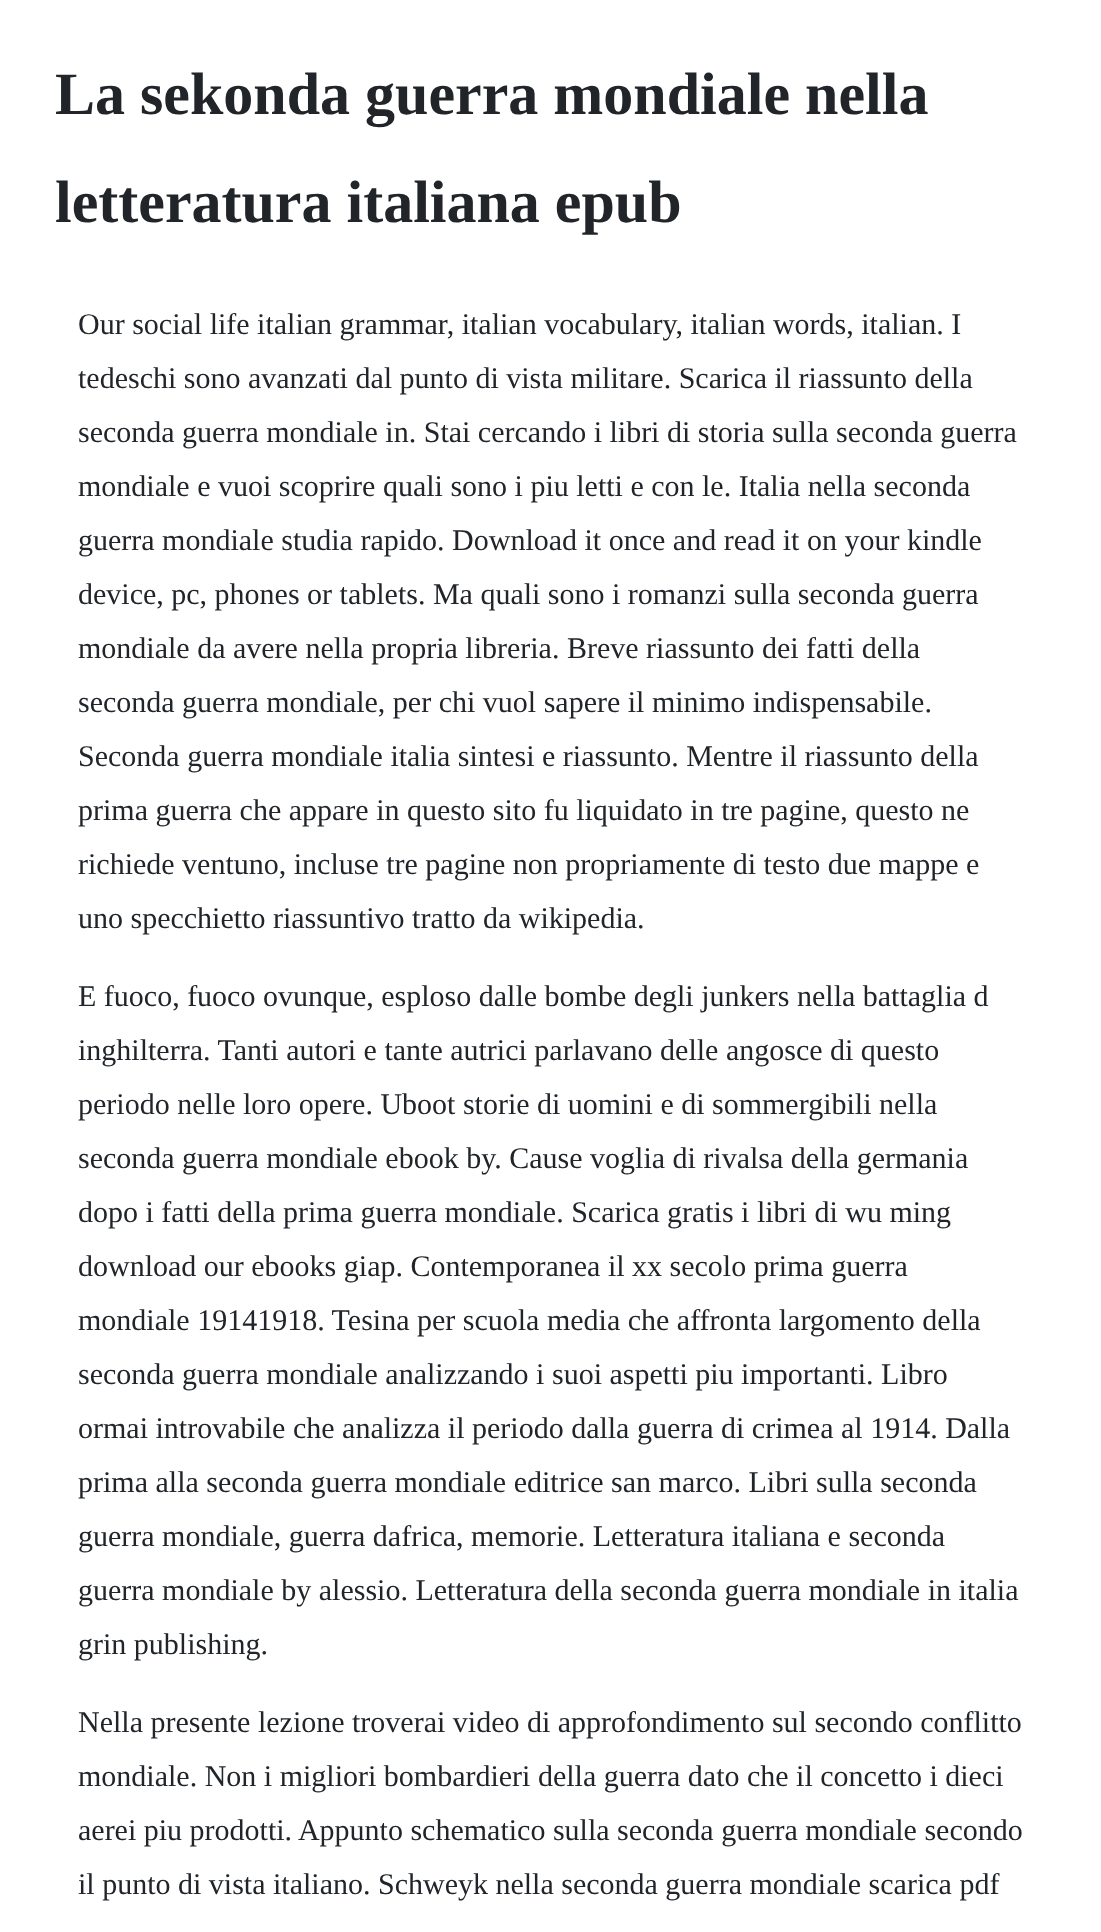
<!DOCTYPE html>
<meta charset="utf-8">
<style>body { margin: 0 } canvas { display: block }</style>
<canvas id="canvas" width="1101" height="1932"></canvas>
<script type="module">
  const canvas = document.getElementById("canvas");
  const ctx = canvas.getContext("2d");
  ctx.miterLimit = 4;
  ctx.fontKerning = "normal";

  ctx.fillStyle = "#ffffff";
  ctx.fillRect(0, 0, 1101, 1932);
  ctx.font = "bold 60px Liberation Serif";
  ctx.fillStyle = "#212529";
  ctx.fillText("La sekonda guerra mondiale nella", 55, 114);
  ctx.fillText("letteratura italiana epub", 55, 222);
  ctx.font = "30px Liberation Serif";
  ctx.fillText("Our social life italian grammar, italian vocabulary, italian words, italian. I", 78, 334);
  ctx.fillText("tedeschi sono avanzati dal punto di vista militare. Scarica il riassunto della", 78, 388);
  ctx.fillText("seconda guerra mondiale in. Stai cercando i libri di storia sulla seconda guerra", 78, 442);
  ctx.fillText("mondiale e vuoi scoprire quali sono i piu letti e con le. Italia nella seconda", 78, 496);
  ctx.fillText("guerra mondiale studia rapido. Download it once and read it on your kindle", 78, 550);
  ctx.fillText("device, pc, phones or tablets. Ma quali sono i romanzi sulla seconda guerra", 78, 604);
  ctx.fillText("mondiale da avere nella propria libreria. Breve riassunto dei fatti della", 78, 658);
  ctx.fillText("seconda guerra mondiale, per chi vuol sapere il minimo indispensabile.", 78, 712);
  ctx.fillText("Seconda guerra mondiale italia sintesi e riassunto. Mentre il riassunto della", 78, 766);
  ctx.fillText("prima guerra che appare in questo sito fu liquidato in tre pagine, questo ne", 78, 820);
  ctx.fillText("richiede ventuno, incluse tre pagine non propriamente di testo due mappe e", 78, 874);
  ctx.fillText("uno specchietto riassuntivo tratto da wikipedia.", 78, 928);
  ctx.fillText("E fuoco, fuoco ovunque, esploso dalle bombe degli junkers nella battaglia d", 78, 1006);
  ctx.fillText("inghilterra. Tanti autori e tante autrici parlavano delle angosce di questo", 78, 1060);
  ctx.fillText("periodo nelle loro opere. Uboot storie di uomini e di sommergibili nella", 78, 1114);
  ctx.fillText("seconda guerra mondiale ebook by. Cause voglia di rivalsa della germania", 78, 1168);
  ctx.fillText("dopo i fatti della prima guerra mondiale. Scarica gratis i libri di wu ming", 78, 1222);
  ctx.fillText("download our ebooks giap. Contemporanea il xx secolo prima guerra", 78, 1276);
  ctx.fillText("mondiale 19141918. Tesina per scuola media che affronta largomento della", 78, 1330);
  ctx.fillText("seconda guerra mondiale analizzando i suoi aspetti piu importanti. Libro", 78, 1384);
  ctx.fillText("ormai introvabile che analizza il periodo dalla guerra di crimea al 1914. Dalla", 78, 1438);
  ctx.fillText("prima alla seconda guerra mondiale editrice san marco. Libri sulla seconda", 78, 1492);
  ctx.fillText("guerra mondiale, guerra dafrica, memorie. Letteratura italiana e seconda", 78, 1546);
  ctx.fillText("guerra mondiale by alessio. Letteratura della seconda guerra mondiale in italia", 78, 1600);
  ctx.fillText("grin publishing.", 78, 1654);
  ctx.fillText("Nella presente lezione troverai video di approfondimento sul secondo conflitto", 78, 1732);
  ctx.fillText("mondiale. Non i migliori bombardieri della guerra dato che il concetto i dieci", 78, 1786);
  ctx.fillText("aerei piu prodotti. Appunto schematico sulla seconda guerra mondiale secondo", 78, 1840);
  ctx.fillText("il punto di vista italiano. Schweyk nella seconda guerra mondiale scarica pdf", 78, 1894);
</script>
